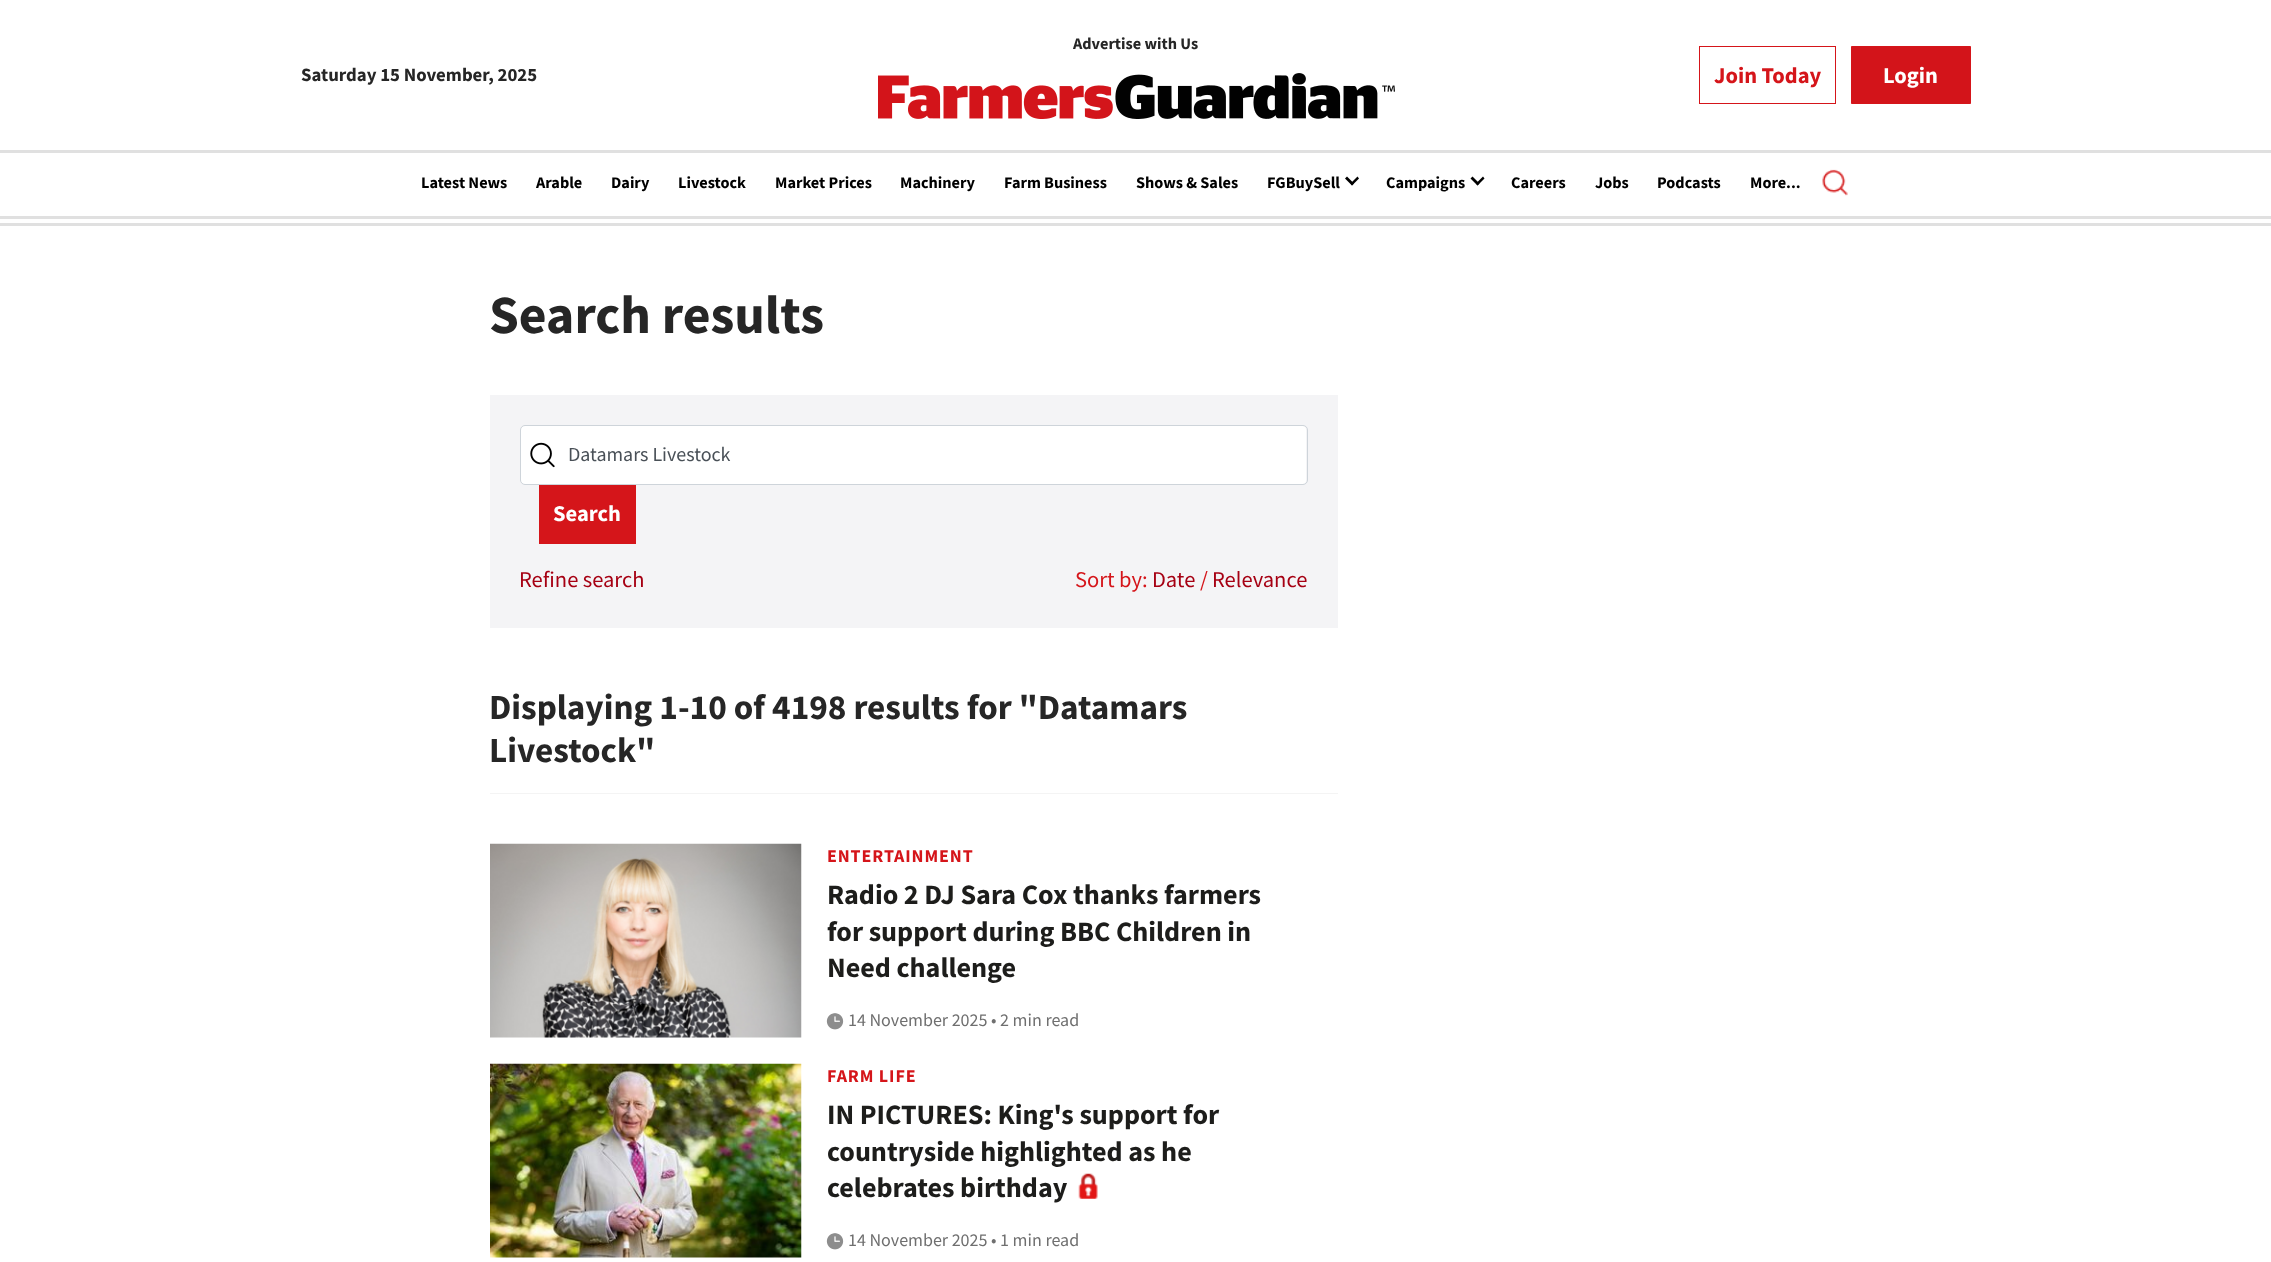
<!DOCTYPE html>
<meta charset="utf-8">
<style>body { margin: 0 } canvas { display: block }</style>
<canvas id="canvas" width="2271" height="1262"></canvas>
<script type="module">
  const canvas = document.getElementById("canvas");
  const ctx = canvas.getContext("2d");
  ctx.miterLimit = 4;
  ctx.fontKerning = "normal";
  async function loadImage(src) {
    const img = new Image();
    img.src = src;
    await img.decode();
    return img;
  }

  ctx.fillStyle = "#ffffff";
  ctx.fillRect(0, 0, 2271, 1262);
  ctx.font = "bold 16.25px Source Sans Pro";
  ctx.fillStyle = "#262626";
  ctx.fillText("Advertise with Us", 1073, 49);
  ctx.drawImage(await loadImage("img1.png"), 878, 73, 517, 46);
  ctx.font = "bold 18.75px Source Sans Pro";
  ctx.fillText("Saturday 15 November, 2025", 301, 81);
  ctx.strokeStyle = "#d5151a";
  ctx.strokeRect(1699.5, 46.5, 136, 57);
  ctx.font = "bold 22.5px Source Sans Pro";
  ctx.fillStyle = "#d5151a";
  ctx.fillText("Join Today", 1714, 83);
  ctx.fillStyle = "#d3141a";
  ctx.beginPath();
  ctx.rect(1851.5, 46.5, 119, 57);
  ctx.fill();
  ctx.stroke();
  ctx.fillStyle = "#ffffff";
  ctx.fillText("Login", 1883, 83);
  ctx.fillStyle = "#e0e0e0";
  ctx.fillRect(0, 150, 2271, 3);
  ctx.fillRect(0, 216, 2271, 3);
  ctx.font = "bold 16.25px Source Sans Pro";
  ctx.fillStyle = "#000000";
  ctx.fillText("Latest News", 421, 188);
  ctx.fillText("Arable", 536, 188);
  ctx.fillText("Dairy", 611, 188);
  ctx.fillText("Livestock", 678, 188);
  ctx.fillText("Market Prices", 775, 188);
  ctx.fillText("Machinery", 900, 188);
  ctx.fillText("Farm Business", 1004, 188);
  ctx.fillText("Shows & Sales", 1136, 188);
  ctx.fillText("FGBuySell", 1267, 188);
  ctx.beginPath();
  ctx.moveTo(1357.5, 176.5);
  ctx.lineTo(1359, 178.5);
  ctx.lineTo(1352, 185.5);
  ctx.lineTo(1350.5, 183.5);
  ctx.closePath();
  ctx.fill();
  ctx.beginPath();
  ctx.moveTo(1347, 176.5);
  ctx.lineTo(1354, 183.5);
  ctx.lineTo(1352, 185.5);
  ctx.lineTo(1345, 178.5);
  ctx.closePath();
  ctx.fill();
  ctx.fillText("Campaigns", 1386, 188);
  ctx.beginPath();
  ctx.moveTo(1483, 176.5);
  ctx.lineTo(1484.5, 178.5);
  ctx.lineTo(1477.5, 185.5);
  ctx.lineTo(1476, 183.5);
  ctx.closePath();
  ctx.fill();
  ctx.beginPath();
  ctx.moveTo(1472.5, 176.5);
  ctx.lineTo(1479.5, 183.5);
  ctx.lineTo(1477.5, 185.5);
  ctx.lineTo(1470.5, 178.5);
  ctx.closePath();
  ctx.fill();
  ctx.fillText("Careers", 1511, 188);
  ctx.fillText("Jobs", 1595, 188);
  ctx.fillText("Podcasts", 1657, 188);
  ctx.fillText("More...", 1750, 188);
  ctx.drawImage(await loadImage("img2.png"), 1822, 169, 26, 27);
  ctx.fillStyle = "#e0e0e0";
  ctx.fillRect(0, 223, 2271, 3);
  ctx.font = "bold 53.75px Source Sans Pro";
  ctx.fillStyle = "#262626";
  ctx.fillText("Search results", 489, 333);
  ctx.fillStyle = "#f4f4f6";
  ctx.fillRect(490, 395, 848, 233);
  ctx.fillStyle = "#ffffff";
  ctx.beginPath();
  ctx.roundRect(521, 426, 785, 58, 4);
  ctx.fill();
  ctx.drawImage(await loadImage("img3.png"), 530, 442, 25, 26);
  ctx.beginPath();
  ctx.roundRect(520.5, 425.5, 787, 59, 4.5);
  ctx.strokeStyle = "#ced4da";
  ctx.stroke();
  ctx.font = "20px Source Sans Pro";
  ctx.fillStyle = "#495057";
  ctx.fillText("Datamars Livestock", 568, 461);
  ctx.fillStyle = "#d5151a";
  ctx.fillRect(539, 485, 97, 59);
  ctx.font = "bold 22.5px Source Sans Pro";
  ctx.fillStyle = "#ffffff";
  ctx.fillText("Search", 553, 521);
  ctx.font = "22.5px Source Sans Pro";
  ctx.fillStyle = "#a60013";
  ctx.fillText("Refine search", 519, 587);
  ctx.fillStyle = "#d5151a";
  ctx.fillText("Sort by:", 1075, 587);
  ctx.fillStyle = "#a60013";
  ctx.fillText("Date", 1152, 587);
  ctx.fillStyle = "#d5151a";
  ctx.fillText("/", 1200, 587);
  ctx.fillStyle = "#a60013";
  ctx.fillText("Relevance", 1212, 587);
  ctx.fillStyle = "#f4f4f4";
  ctx.fillRect(490, 793, 848, 1);
  ctx.font = "bold 35.2px Source Sans Pro";
  ctx.fillStyle = "#262626";
  ctx.fillText("Displaying 1-10 of 4198 results for \"Datamars", 489, 719);
  ctx.fillText("Livestock\"", 489, 762);
  ctx.drawImage(await loadImage("img4.png"), 490, 843, 312, 195);
  ctx.letterSpacing = "0.9px";
  ctx.font = "bold 18px Source Sans Pro";
  ctx.fillStyle = "#d5151a";
  ctx.fillText("ENTERTAINMENT", 827, 862);
  ctx.letterSpacing = "0px";
  ctx.font = "bold 28.1px Source Sans Pro";
  ctx.fillStyle = "#1d1d1b";
  ctx.fillText("Radio 2 DJ Sara Cox thanks farmers", 827, 904);
  ctx.fillText("for support during BBC Children in", 827, 941);
  ctx.fillText("Need challenge", 827, 977);
  ctx.drawImage(await loadImage("img5.png"), 826, 1013, 18, 17);
  ctx.font = "18px Source Sans Pro";
  ctx.fillStyle = "#6f6f6f";
  ctx.fillText("14 November 2025 • 2 min read", 848, 1026);
  ctx.drawImage(await loadImage("img6.png"), 490, 1063, 312, 195);
  ctx.letterSpacing = "0.9px";
  ctx.font = "bold 18px Source Sans Pro";
  ctx.fillStyle = "#d5151a";
  ctx.fillText("FARM LIFE", 827, 1082);
  ctx.letterSpacing = "0px";
  ctx.font = "bold 28.1px Source Sans Pro";
  ctx.fillStyle = "#1d1d1b";
  ctx.fillText("IN PICTURES: King's support for", 827, 1124);
  ctx.fillText("countryside highlighted as he", 827, 1161);
  ctx.fillText("celebrates birthday", 827, 1197);
  ctx.drawImage(await loadImage("img7.png"), 1078, 1173, 20, 26);
  ctx.drawImage(await loadImage("img5.png"), 826, 1233, 18, 17);
  ctx.font = "18px Source Sans Pro";
  ctx.fillStyle = "#6f6f6f";
  ctx.fillText("14 November 2025 • 1 min read", 848, 1246);
</script>
